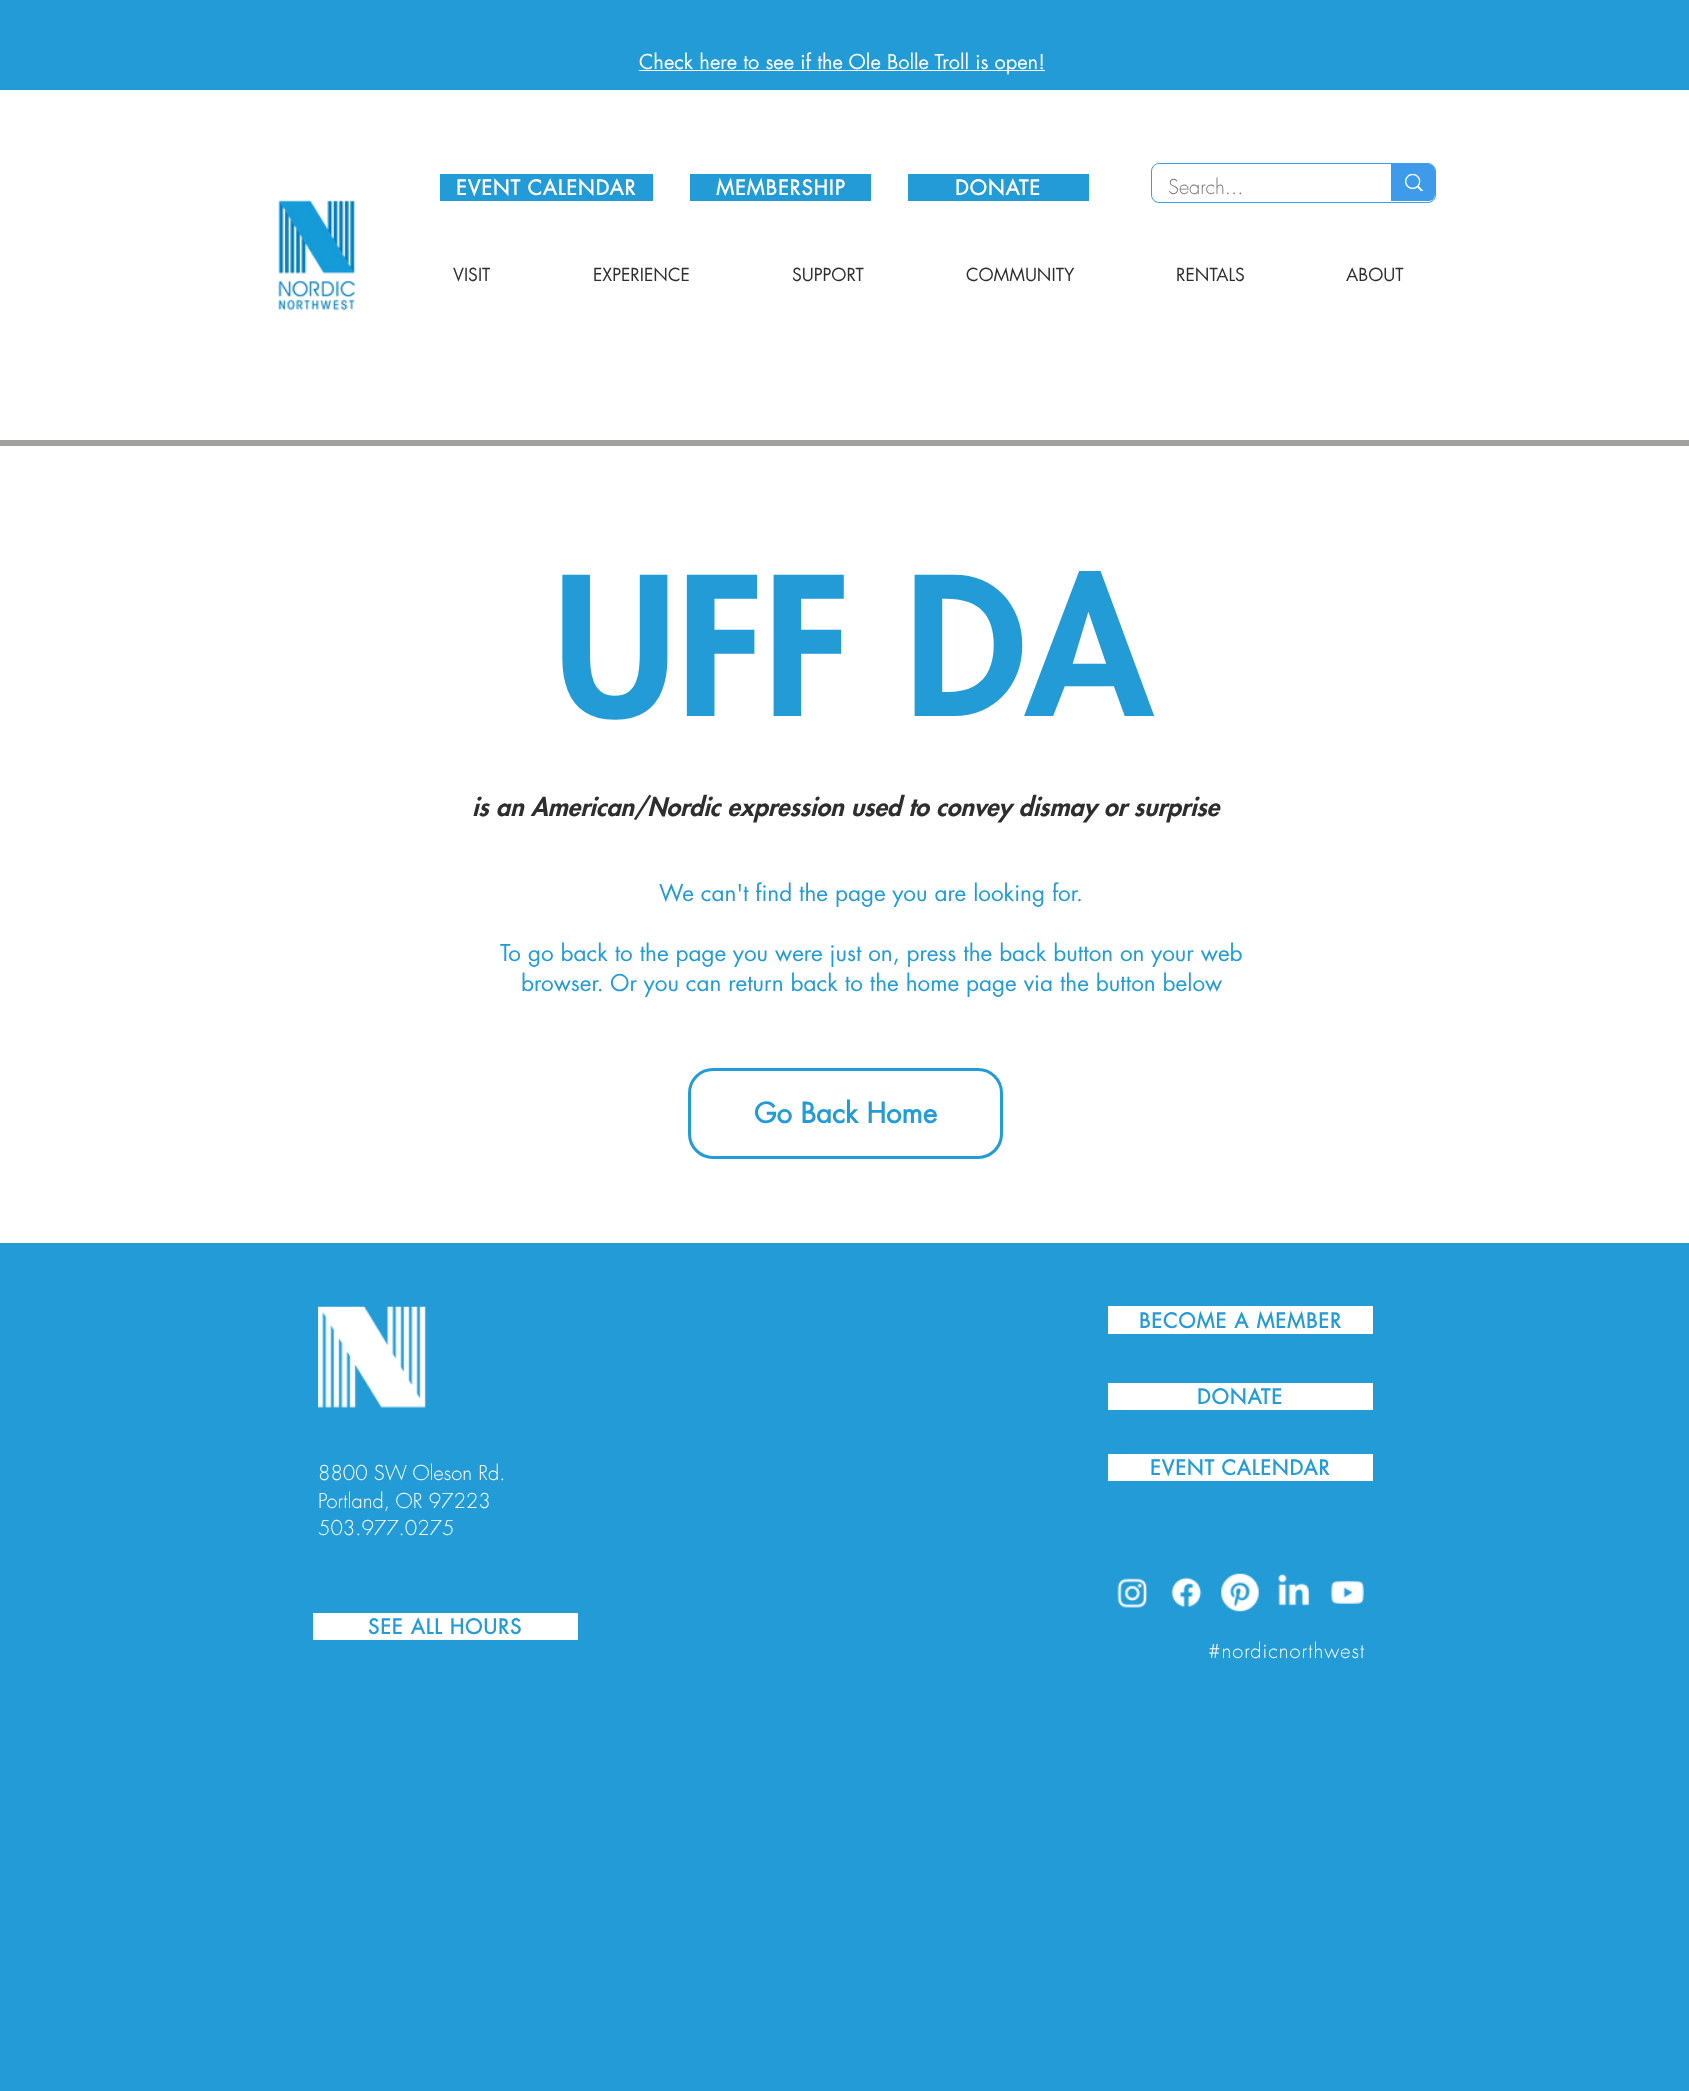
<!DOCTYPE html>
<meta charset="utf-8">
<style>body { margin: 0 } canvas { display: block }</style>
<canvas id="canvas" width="1689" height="2091"></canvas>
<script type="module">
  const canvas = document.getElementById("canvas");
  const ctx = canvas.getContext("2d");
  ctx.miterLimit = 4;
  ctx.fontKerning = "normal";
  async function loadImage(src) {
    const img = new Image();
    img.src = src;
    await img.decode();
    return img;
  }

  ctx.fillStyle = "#ffffff";
  ctx.fillRect(0, 0, 1689, 2091);
  ctx.fillStyle = "#239bd6";
  ctx.fillRect(0, 0, 1689, 90);
  ctx.fillStyle = "#ffffff";
  ctx.fillRect(639, 70, 406, 1);
  ctx.font = "20px futura";
  ctx.fillText("Check here to see if the Ole Bolle Troll is open!", 639, 69);
  ctx.fillStyle = "#239bd6";
  ctx.fillRect(440, 174, 213, 27);
  ctx.letterSpacing = "1px";
  ctx.font = "bold 20px futura";
  ctx.fillStyle = "#ffffff";
  ctx.fillText("EVENT CALENDAR", 456, 195);
  ctx.fillStyle = "#239bd6";
  ctx.fillRect(690, 174, 181, 27);
  ctx.fillStyle = "#ffffff";
  ctx.fillText("MEMBERSHIP", 716, 195);
  ctx.fillStyle = "#239bd6";
  ctx.fillRect(908, 174, 181, 27);
  ctx.fillStyle = "#ffffff";
  ctx.fillText("DONATE", 955, 195);
  ctx.beginPath();
  ctx.roundRect(1151.5, 163.5, 284, 39, 7.5);
  ctx.strokeStyle = "#3d9be9";
  ctx.stroke();
  ctx.beginPath();
  ctx.roundRect(1153, 164, 282, 37, 6);
  ctx.fill();
  ctx.letterSpacing = "0px";
  ctx.font = "300 20px futura";
  ctx.fillStyle = "#787878";
  ctx.fillText("Search...", 1168, 194);
  ctx.fillStyle = "#3d9be9";
  ctx.beginPath();
  ctx.roundRect(1391, 164, 44, 37, [0, 6, 6, 0]);
  ctx.fill();
  ctx.drawImage(await loadImage("img1.png"), 1405, 174, 18, 17);
  ctx.drawImage(await loadImage("img2.png"), 278, 200, 78, 111);
  ctx.font = "17.5px futura";
  ctx.fillStyle = "#2f2e2e";
  ctx.fillText("VISIT", 453, 281);
  ctx.fillText("EXPERIENCE", 593, 281);
  ctx.fillText("SUPPORT", 792, 281);
  ctx.fillText("COMMUNITY", 966, 281);
  ctx.fillText("RENTALS", 1176, 281);
  ctx.fillText("ABOUT", 1346, 281);
  ctx.fillStyle = "#a0a09f";
  ctx.fillRect(0, 440, 1689, 6);
  ctx.font = "900 187.5px Futura";
  ctx.fillStyle = "#239bd6";
  ctx.fillText("UFF DA", 553, 716);
  ctx.font = "italic 900 25px Futura";
  ctx.fillStyle = "#2f2e2e";
  ctx.fillText("is an American/Nordic expression used to convey dismay or surprise", 472, 816);
  ctx.font = "22.5px futura";
  ctx.fillStyle = "#239bd6";
  ctx.fillText("We can't find the page you are looking for.", 659, 901);
  ctx.fillText("To go back to the page you were just on, press the back button on your web", 500, 961);
  ctx.fillText("browser. Or you can return back to the home page via the button below", 521, 991);
  ctx.beginPath();
  ctx.roundRect(689.5, 1069.5, 312, 88, 23.5);
  ctx.strokeStyle = "#239bd6";
  ctx.lineWidth = 3;
  ctx.stroke();
  ctx.font = "bold 27.5px futura";
  ctx.fillText("Go Back Home", 754, 1123);
  ctx.fillRect(0, 1243, 1689, 848);
  ctx.drawImage(await loadImage("img3.png"), 318, 1306, 108, 102);
  ctx.fillStyle = "#ffffff";
  ctx.fillRect(1108, 1306, 265, 28);
  ctx.letterSpacing = "1px";
  ctx.font = "bold 20px futura";
  ctx.fillStyle = "#239bd6";
  ctx.fillText("BECOME A MEMBER", 1139, 1328);
  ctx.fillStyle = "#ffffff";
  ctx.fillRect(1108, 1383, 265, 27);
  ctx.fillStyle = "#239bd6";
  ctx.fillText("DONATE", 1197, 1404);
  ctx.letterSpacing = "0px";
  ctx.font = "300 20px futura";
  ctx.fillStyle = "#ffffff";
  ctx.fillText("8800 SW Oleson Rd.", 318, 1480);
  ctx.fillText("Portland, OR 97223", 318, 1508);
  ctx.fillText("503.977.0275", 318, 1535);
  ctx.fillRect(1108, 1454, 265, 27);
  ctx.letterSpacing = "1px";
  ctx.font = "bold 20px futura";
  ctx.fillStyle = "#239bd6";
  ctx.fillText("EVENT CALENDAR", 1150, 1475);
  ctx.drawImage(await loadImage("img4.png"), 1117, 1578, 31, 30);
  ctx.drawImage(await loadImage("img5.png"), 1171, 1577, 31, 31);
  ctx.drawImage(await loadImage("img6.png"), 1221, 1573, 38, 39);
  ctx.drawImage(await loadImage("img7.png"), 1278, 1573, 32, 33);
  ctx.drawImage(await loadImage("img8.png"), 1331, 1580, 33, 24);
  ctx.fillStyle = "#ffffff";
  ctx.fillRect(313, 1613, 265, 27);
  ctx.fillStyle = "#239bd6";
  ctx.fillText("SEE ALL HOURS", 368, 1634);
  ctx.font = "300 20px futura";
  ctx.fillStyle = "#ffffff";
  ctx.fillText("#nordicnorthwest", 1208, 1658);
</script>
